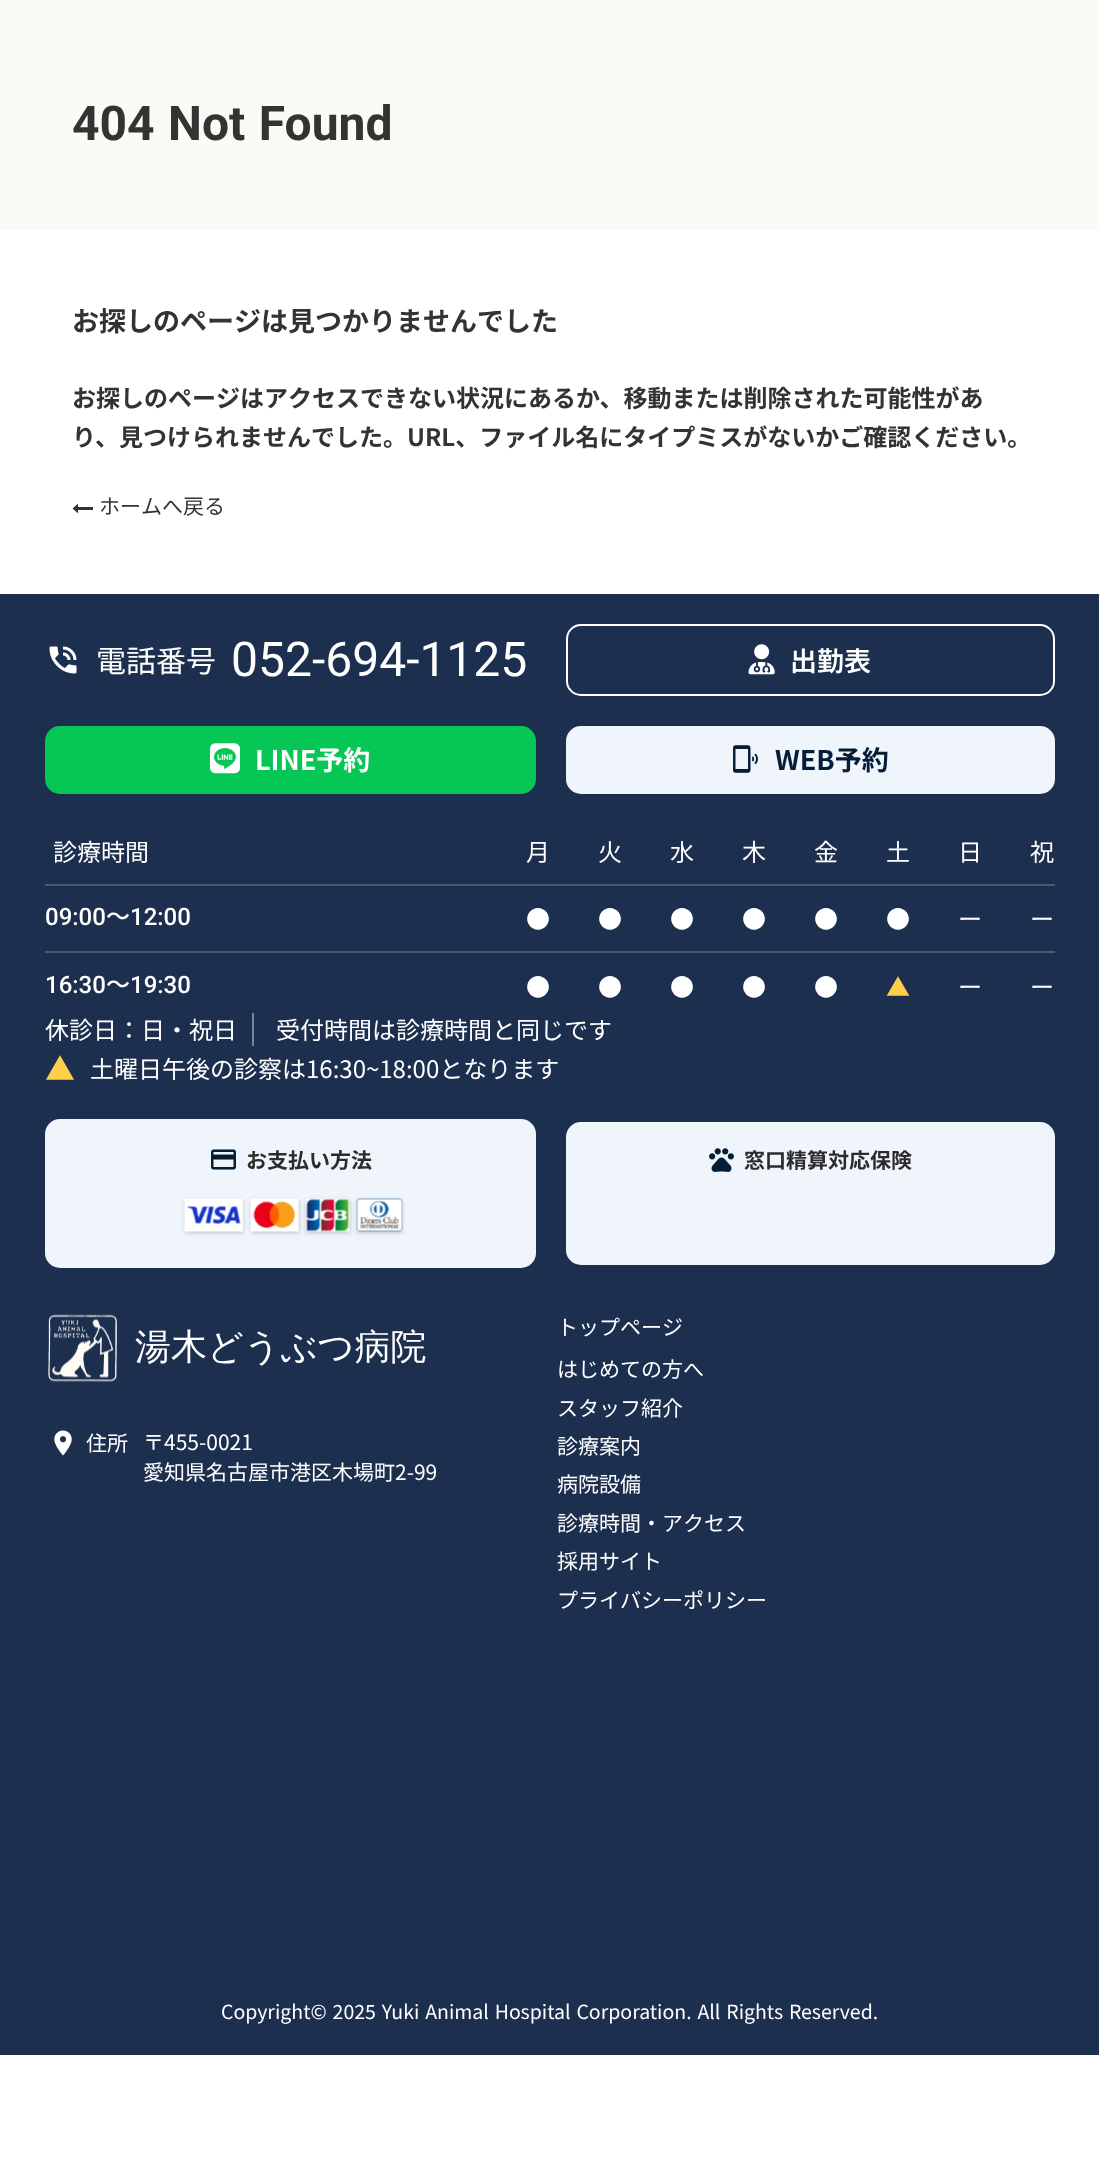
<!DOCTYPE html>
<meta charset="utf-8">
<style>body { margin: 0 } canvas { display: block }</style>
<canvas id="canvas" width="1099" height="2181"></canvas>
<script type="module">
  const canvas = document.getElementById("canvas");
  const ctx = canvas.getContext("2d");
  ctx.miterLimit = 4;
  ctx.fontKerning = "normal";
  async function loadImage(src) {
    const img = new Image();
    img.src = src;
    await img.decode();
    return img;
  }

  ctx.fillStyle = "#ffffff";
  ctx.fillRect(0, 0, 1099, 2181);
  ctx.fillStyle = "#fcfaf5";
  ctx.fillRect(0, 0, 1099, 230);
  ctx.wordSpacing = "1.5px";
  ctx.font = "bold 48px Roboto";
  ctx.fillStyle = "#333333";
  ctx.fillText("404 Not Found", 72, 140);
  ctx.wordSpacing = "0px";
  ctx.font = "bold 27px Noto Sans JP";
  ctx.fillText("お探しのページは見つかりませんでした", 72, 331);
  ctx.font = "bold 24px Noto Sans JP";
  ctx.fillText("お探しのページはアクセスできない状況にあるか、移動または削除された可能性があ", 72, 407);
  ctx.fillText("り、見つけられませんでした。URL、ファイル名にタイプミスがないかご確認ください。", 72, 446);
  ctx.drawImage(await loadImage("img1.png"), 72, 504, 21, 9);
  ctx.font = "21px Noto Sans JP";
  ctx.fillText("ホームへ戻る", 99, 514);
  ctx.fillStyle = "#1d2f4e";
  ctx.fillRect(0, 594, 1099, 1461);
  ctx.drawImage(await loadImage("img2.png"), 49, 646, 28, 28);
  ctx.font = "30px Noto Sans JP";
  ctx.fillStyle = "#ffffff";
  ctx.fillText("電話番号", 96, 672);
  ctx.font = "48px Roboto";
  ctx.fillText("052-694-1125", 231, 676);
  ctx.beginPath();
  ctx.roundRect(567, 625, 487, 70, 14);
  ctx.strokeStyle = "#ffffff";
  ctx.lineWidth = 2;
  ctx.stroke();
  ctx.drawImage(await loadImage("img3.png"), 748, 644, 27, 31);
  ctx.font = "600 27px Noto Sans JP";
  ctx.fillText("出勤表", 790, 671);
  ctx.fillStyle = "#06c655";
  ctx.beginPath();
  ctx.roundRect(45, 726, 491, 68, 15);
  ctx.fill();
  ctx.drawImage(await loadImage("img4.png"), 210, 743, 30, 31);
  ctx.font = "bold 27px Noto Sans JP";
  ctx.fillStyle = "#ffffff";
  ctx.fillText("LINE予約", 255, 770);
  ctx.fillStyle = "#f0f5fb";
  ctx.beginPath();
  ctx.roundRect(566, 726, 489, 68, 15);
  ctx.fill();
  ctx.drawImage(await loadImage("img5.png"), 733, 745, 25, 28);
  ctx.fillStyle = "#041e3a";
  ctx.fillText("WEB予約", 775, 770);
  ctx.font = "24px Noto Sans JP";
  ctx.fillStyle = "#ffffff";
  ctx.fillText("診療時間", 53, 861);
  ctx.fillText("月", 526, 861);
  ctx.fillText("火", 598, 861);
  ctx.fillText("水", 670, 861);
  ctx.fillText("木", 742, 861);
  ctx.fillText("金", 814, 861);
  ctx.fillText("土", 886, 861);
  ctx.fillText("日", 958, 861);
  ctx.fillText("祝", 1030, 861);
  ctx.fillStyle = "#4a5971";
  ctx.fillRect(45, 884, 1010, 2);
  ctx.font = "500 24px Roboto";
  ctx.fillStyle = "#ffffff";
  ctx.fillText("09:00", 45, 925);
  ctx.font = "500 24px Noto Sans JP";
  ctx.fillText("〜", 106, 925);
  ctx.font = "500 24px Roboto";
  ctx.fillText("12:00", 130, 925);
  ctx.font = "24px Noto Sans JP";
  ctx.fillText("●", 526, 928);
  ctx.fillText("●", 598, 928);
  ctx.fillText("●", 670, 928);
  ctx.fillText("●", 742, 928);
  ctx.fillText("●", 814, 928);
  ctx.fillText("●", 886, 928);
  ctx.fillText("ー", 958, 928);
  ctx.fillText("ー", 1030, 928);
  ctx.fillStyle = "#4a5971";
  ctx.fillRect(45, 951, 1010, 2);
  ctx.font = "500 24px Roboto";
  ctx.fillStyle = "#ffffff";
  ctx.fillText("16:30", 45, 993);
  ctx.font = "500 24px Noto Sans JP";
  ctx.fillText("〜", 106, 993);
  ctx.font = "500 24px Roboto";
  ctx.fillText("19:30", 130, 993);
  ctx.font = "24px Noto Sans JP";
  ctx.fillText("●", 526, 996);
  ctx.fillText("●", 598, 996);
  ctx.fillText("●", 670, 996);
  ctx.fillText("●", 742, 996);
  ctx.fillText("●", 814, 996);
  ctx.fillStyle = "#ffce4b";
  ctx.fillText("▲", 886, 996);
  ctx.fillStyle = "#ffffff";
  ctx.fillText("ー", 958, 996);
  ctx.fillText("ー", 1030, 996);
  ctx.fillStyle = "#788396";
  ctx.fillRect(252, 1013, 2, 33);
  ctx.fillStyle = "#ffffff";
  ctx.fillText("休診日：日・祝日", 45, 1039);
  ctx.fillText("受付時間は診療時間と同じです", 276, 1039);
  ctx.font = "30px Noto Sans JP";
  ctx.fillStyle = "#ffce4b";
  ctx.fillText("▲", 45, 1080);
  ctx.font = "24px Noto Sans JP";
  ctx.fillStyle = "#ffffff";
  ctx.fillText("土曜日午後の診察は16:30~18:00となります", 90, 1078);
  ctx.fillStyle = "#f0f5fb";
  ctx.beginPath();
  ctx.roundRect(45, 1119, 491, 149, 15);
  ctx.fill();
  ctx.drawImage(await loadImage("img6.png"), 211, 1149, 25, 21);
  ctx.font = "bold 21px Noto Sans JP";
  ctx.fillStyle = "#2c2c2c";
  ctx.fillText("お支払い方法", 246, 1168);
  ctx.fillStyle = "rgba(0, 0, 0, 0.2)";
  ctx.filter = "blur(2px)";
  ctx.beginPath();
  ctx.rect(185, 1200, 58, 33);
  ctx.fill();
  ctx.filter = "none";
  ctx.drawImage(await loadImage("img7.png"), 184, 1198, 60, 34);
  ctx.filter = "blur(2px)";
  ctx.beginPath();
  ctx.rect(251, 1200, 48, 33);
  ctx.fill();
  ctx.filter = "none";
  ctx.drawImage(await loadImage("img8.png"), 250, 1198, 49, 34);
  ctx.filter = "blur(2px)";
  ctx.beginPath();
  ctx.rect(306, 1200, 44, 33);
  ctx.fill();
  ctx.filter = "none";
  ctx.drawImage(await loadImage("img9.png"), 305, 1198, 45, 34);
  ctx.filter = "blur(2px)";
  ctx.beginPath();
  ctx.rect(357, 1200, 45, 33);
  ctx.fill();
  ctx.filter = "none";
  ctx.drawImage(await loadImage("img10.png"), 356, 1198, 47, 34);
  ctx.fillStyle = "#f0f5fb";
  ctx.beginPath();
  ctx.roundRect(566, 1122, 489, 143, 15);
  ctx.fill();
  ctx.drawImage(await loadImage("img11.png"), 709, 1148, 25, 24);
  ctx.fillStyle = "#2c2c2c";
  ctx.fillText("窓口精算対応保険", 744, 1168);
  ctx.drawImage(await loadImage("img12.png"), 48, 1314, 69, 68);
  ctx.font = "500 36px WenQuanYi Zen Hei";
  ctx.fillStyle = "#ffffff";
  ctx.fillText("湯木どうぶつ病院", 135, 1359);
  ctx.drawImage(await loadImage("img13.png"), 54, 1430, 18, 26);
  ctx.font = "21px Noto Sans JP";
  ctx.fillText("住所", 86, 1451);
  ctx.fillText("〒455-0021", 143, 1450);
  ctx.fillText("愛知県名古屋市港区木場町2-99", 143, 1480);
  ctx.fillText("トップページ", 557, 1335);
  ctx.fillText("はじめての方へ", 557, 1377);
  ctx.fillText("スタッフ紹介", 557, 1416);
  ctx.fillText("診療案内", 557, 1454);
  ctx.fillText("病院設備", 557, 1492);
  ctx.fillText("診療時間・アクセス", 557, 1531);
  ctx.fillText("採用サイト", 557, 1569);
  ctx.fillText("プライバシーポリシー", 557, 1608);
  ctx.wordSpacing = "1.5px";
  ctx.font = "19.5px Noto Sans JP";
  ctx.fillText("Copyright© 2025 Yuki Animal Hospital Corporation. All Rights Reserved.", 221, 2019);
</script>
